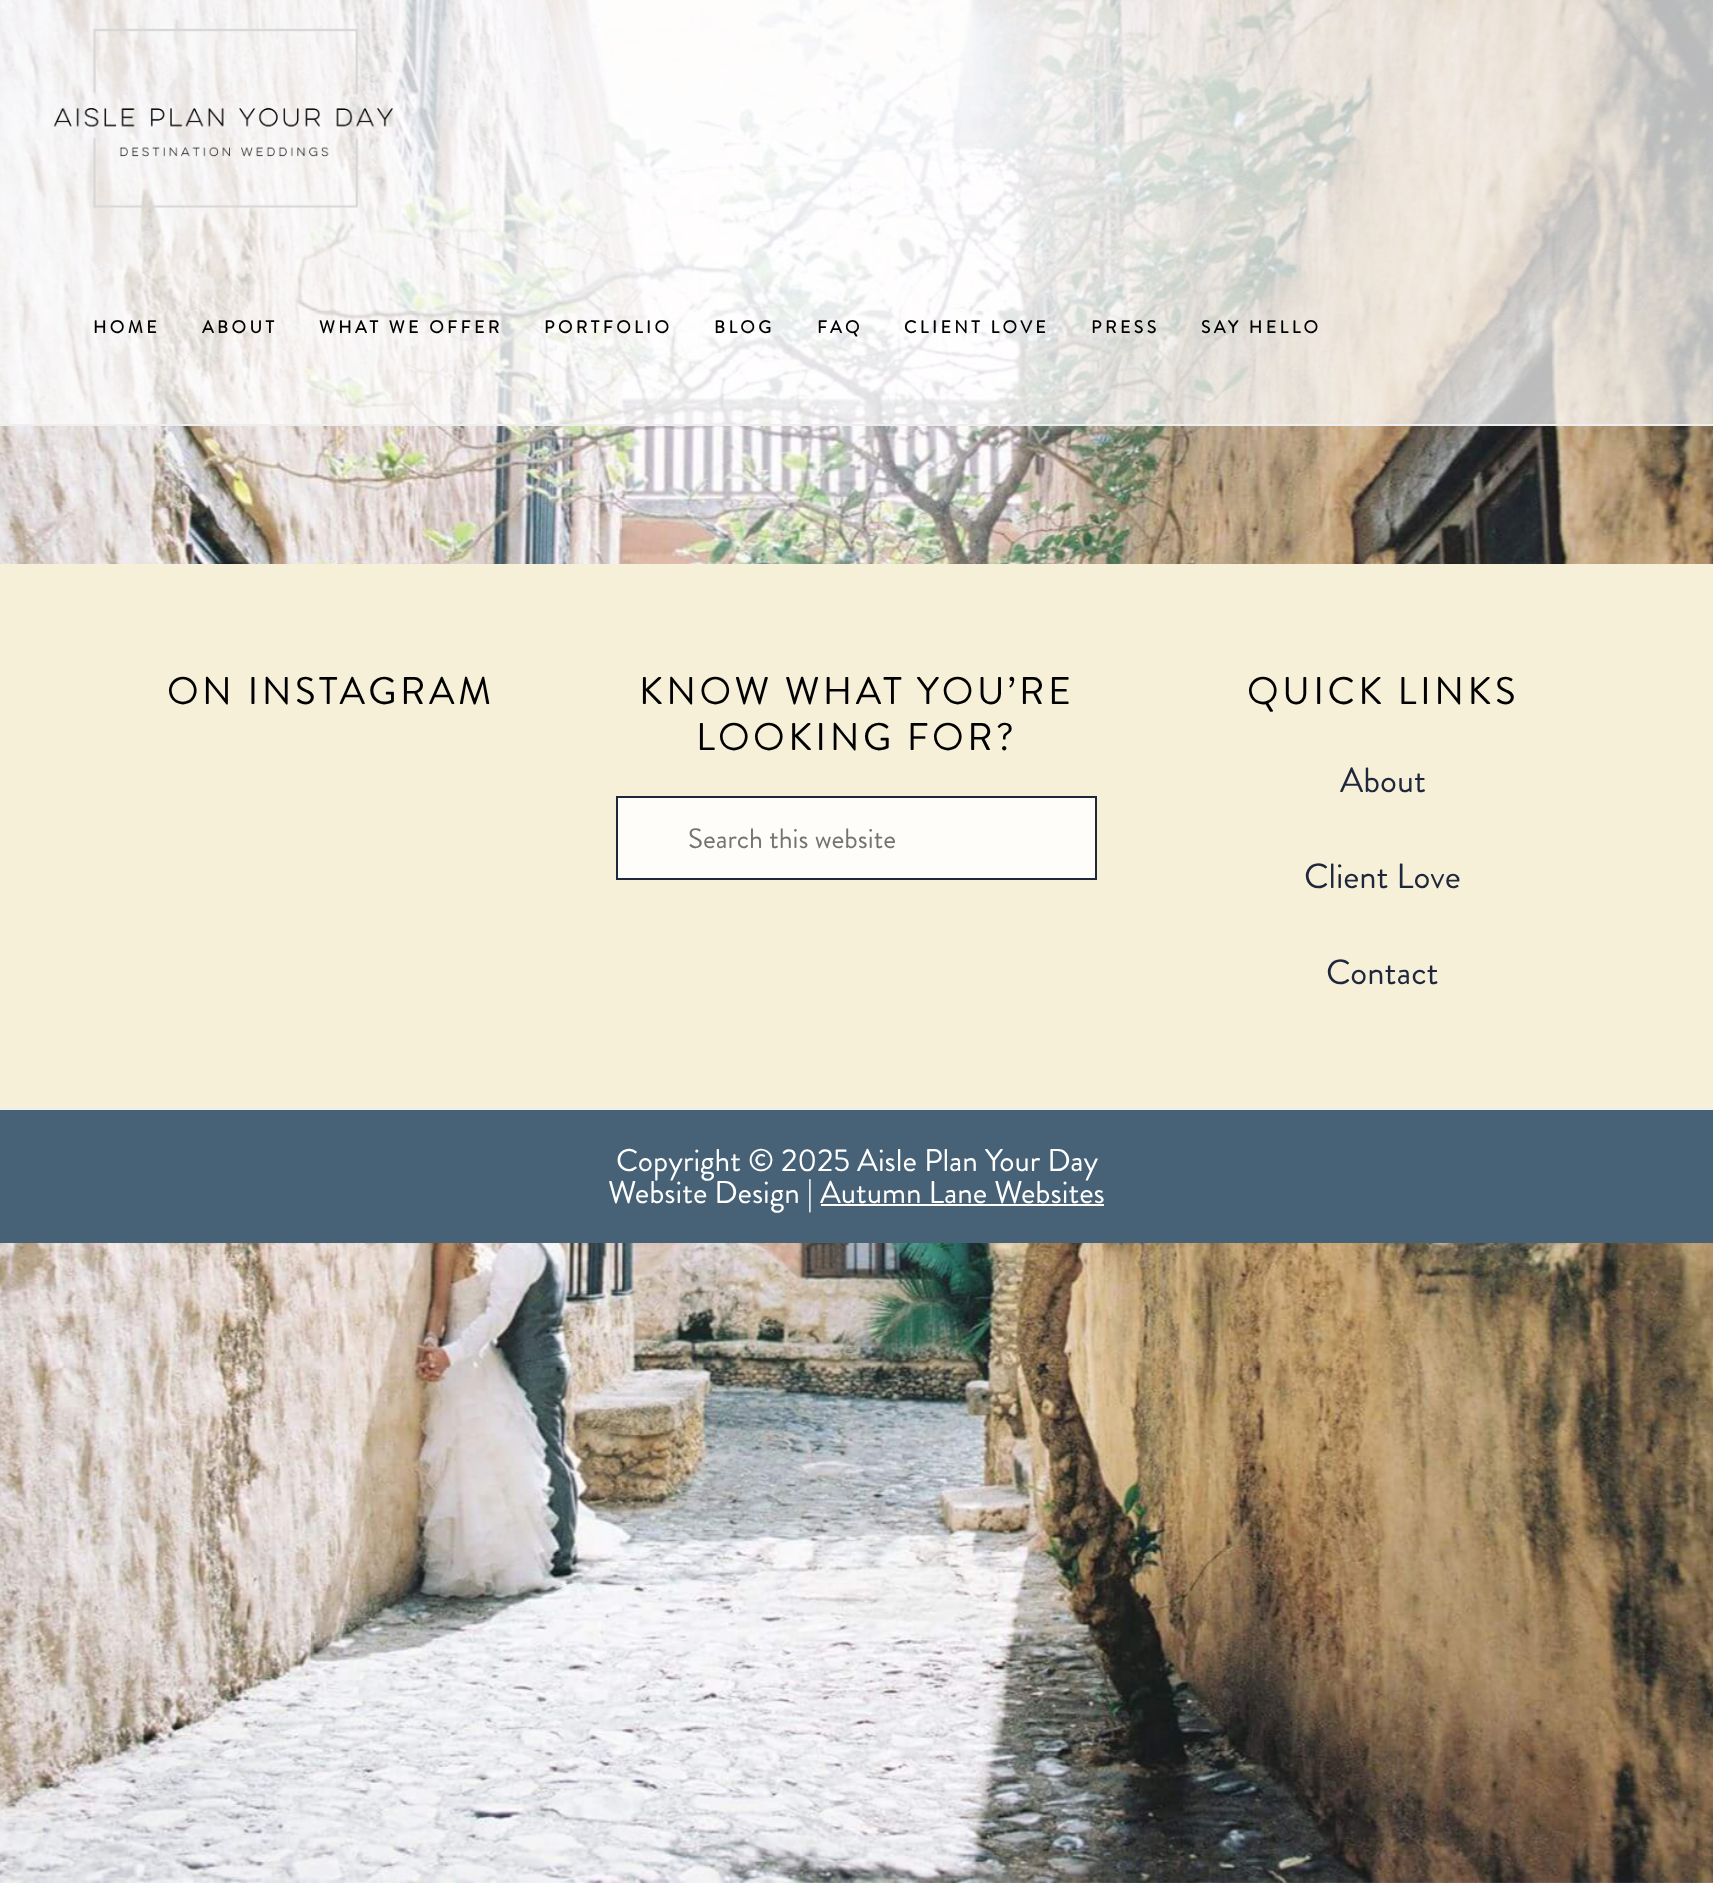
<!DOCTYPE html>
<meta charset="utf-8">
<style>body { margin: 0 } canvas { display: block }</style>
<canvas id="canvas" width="1713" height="1883"></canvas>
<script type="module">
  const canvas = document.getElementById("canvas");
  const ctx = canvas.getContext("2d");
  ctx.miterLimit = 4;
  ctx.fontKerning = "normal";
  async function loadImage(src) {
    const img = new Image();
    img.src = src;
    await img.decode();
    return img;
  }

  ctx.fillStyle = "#ffffff";
  ctx.fillRect(0, 0, 1713, 1883);
  ctx.drawImage(await loadImage("img1.png"), 0, 0, 1713, 1883);
  ctx.fillStyle = "rgba(255, 255, 255, 0.7)";
  ctx.fillRect(0, 0, 1713, 424);
  ctx.fillStyle = "#eeeeee";
  ctx.fillRect(0, 424, 1713, 2);
  ctx.drawImage(await loadImage("img2.png"), 53, 28, 341, 180);
  ctx.letterSpacing = "3.5px";
  ctx.font = "bold 17.5px Brandon Grotesque";
  ctx.fillStyle = "#000000";
  ctx.fillText("HOME", 93, 333);
  ctx.fillText("ABOUT", 202, 333);
  ctx.fillText("WHAT WE OFFER", 319, 333);
  ctx.fillText("PORTFOLIO", 544, 333);
  ctx.fillText("BLOG", 714, 333);
  ctx.fillText("FAQ", 817, 333);
  ctx.fillText("CLIENT LOVE", 904, 333);
  ctx.fillText("PRESS", 1091, 333);
  ctx.fillText("SAY HELLO", 1201, 333);
  ctx.fillStyle = "#f7f0d9";
  ctx.fillRect(0, 564, 1713, 544);
  ctx.font = "38.5px Brandon Grotesque";
  ctx.fillStyle = "#000000";
  ctx.fillText("ON INSTAGRAM", 167, 704);
  ctx.fillText("KNOW WHAT YOU’RE", 639, 704);
  ctx.fillText("LOOKING FOR?", 696, 750);
  ctx.fillStyle = "#fefdf9";
  ctx.beginPath();
  ctx.rect(617, 797, 479, 82);
  ctx.fill();
  ctx.strokeStyle = "#1f273c";
  ctx.lineWidth = 2;
  ctx.stroke();
  ctx.letterSpacing = "0px";
  ctx.font = "28px Brandon Grotesque";
  ctx.fillStyle = "#757473";
  ctx.fillText("Search this website", 688, 848);
  ctx.letterSpacing = "3.5px";
  ctx.font = "38.5px Brandon Grotesque";
  ctx.fillStyle = "#000000";
  ctx.fillText("QUICK LINKS", 1247, 704);
  ctx.letterSpacing = "0px";
  ctx.font = "35px Brandon Grotesque";
  ctx.fillStyle = "#1f273c";
  ctx.fillText("About", 1340, 792);
  ctx.fillText("Client Love", 1304, 888);
  ctx.fillText("Contact", 1326, 984);
  ctx.fillStyle = "#476276";
  ctx.fillRect(0, 1110, 1713, 133);
  ctx.fillStyle = "#eeeeee";
  ctx.fillRect(0, 1108, 1713, 2);
  ctx.font = "31.5px Brandon Grotesque";
  ctx.fillStyle = "#ffffff";
  ctx.fillText("Copyright © 2025 Aisle Plan Your Day", 616, 1171);
  ctx.fillText("Website Design | Autumn Lane Websites", 608, 1203);
  ctx.fillRect(821, 1204, 283, 2);
</script>
